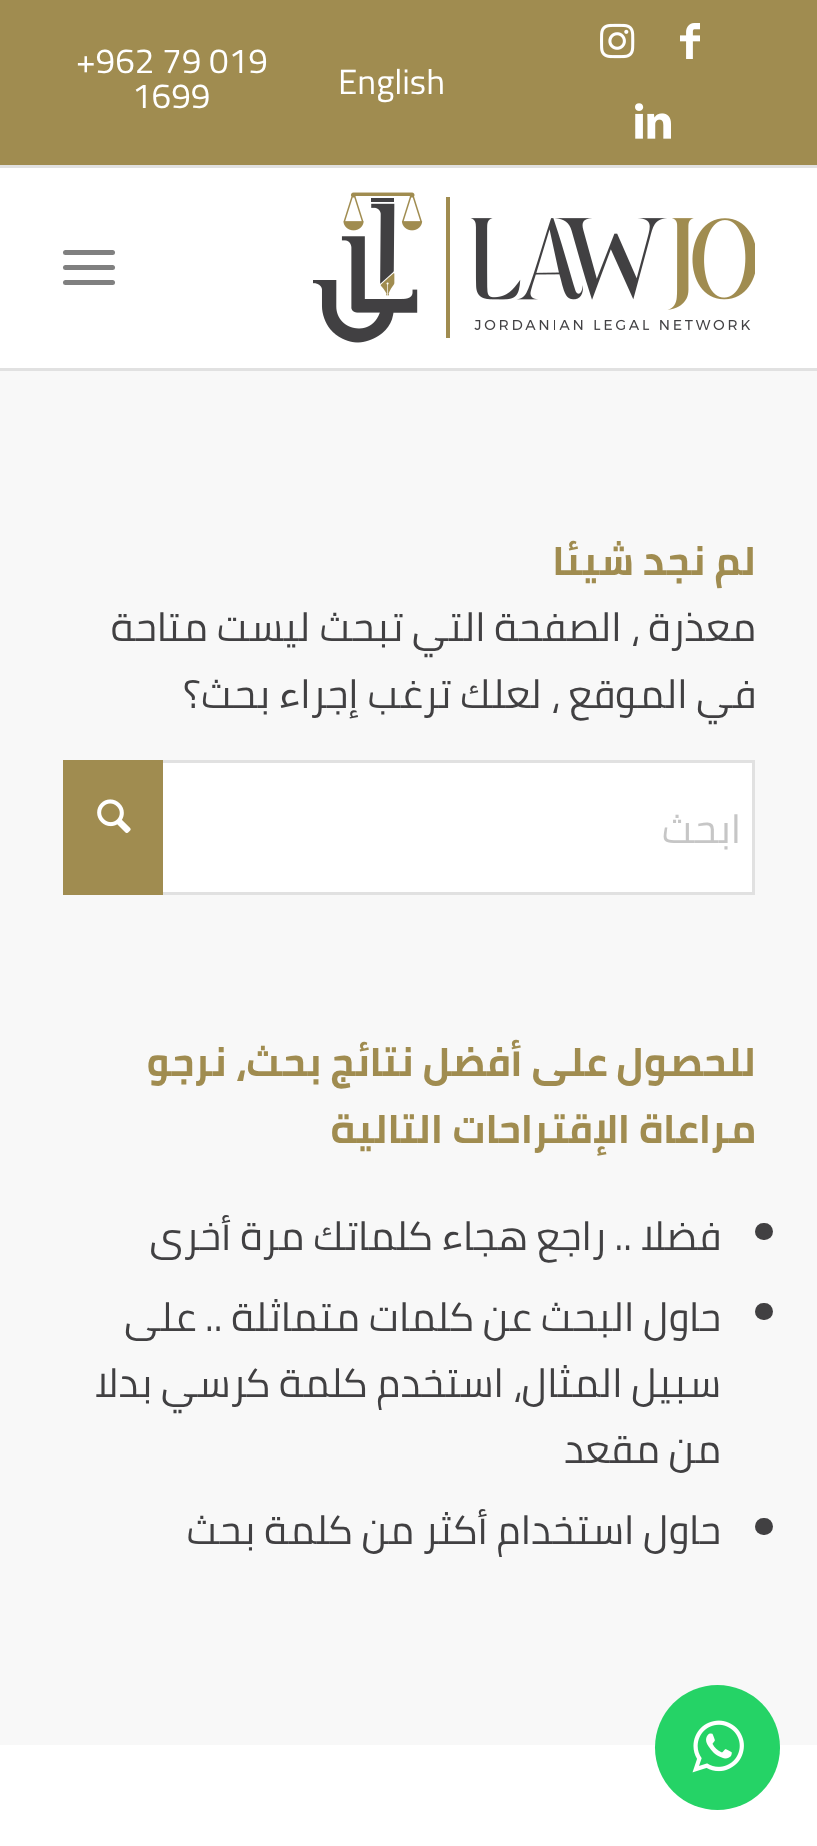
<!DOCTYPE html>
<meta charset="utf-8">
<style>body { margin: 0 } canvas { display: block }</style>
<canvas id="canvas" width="817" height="1846"></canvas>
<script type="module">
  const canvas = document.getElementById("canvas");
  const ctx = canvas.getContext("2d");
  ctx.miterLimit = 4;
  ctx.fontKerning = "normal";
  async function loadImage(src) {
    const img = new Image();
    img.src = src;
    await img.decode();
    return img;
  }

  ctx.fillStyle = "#ffffff";
  ctx.fillRect(0, 0, 817, 1846);
  ctx.fillStyle = "#a08c50";
  ctx.fillRect(0, 0, 817, 165);
  ctx.fillStyle = "#e1e1e1";
  ctx.fillRect(0, 165, 817, 3);
  ctx.drawImage(await loadImage("img1.png"), 680, 23, 20, 36);
  ctx.drawImage(await loadImage("img2.png"), 600, 23, 35, 36);
  ctx.drawImage(await loadImage("img3.png"), 635, 103, 36, 36);
  ctx.font = "35px Cairo";
  ctx.fillStyle = "#ffffff";
  ctx.fillText("English", 338, 94);
  ctx.fillText("+962 79 019", 76, 73);
  ctx.fillText("1699", 132, 108);
  ctx.fillStyle = "#e1e1e1";
  ctx.fillRect(0, 368, 817, 3);
  ctx.drawImage(await loadImage("img4.png"), 313, 192, 442, 151);
  ctx.fillStyle = "#808080";
  ctx.beginPath();
  ctx.roundRect(63, 265, 52, 5, 2.5);
  ctx.fill();
  ctx.beginPath();
  ctx.roundRect(63, 250, 52, 5, 2.5);
  ctx.fill();
  ctx.beginPath();
  ctx.roundRect(63, 280, 52, 5, 2.5);
  ctx.fill();
  ctx.fillStyle = "#f8f8f8";
  ctx.fillRect(0, 371, 817, 1374);
  ctx.direction = "rtl";
  ctx.font = "bold 40px Cairo";
  ctx.fillStyle = "#a08c50";
  ctx.fillText("لم نجد شيئا", 756, 575);
  ctx.font = "40px Cairo";
  ctx.fillStyle = "#414042";
  ctx.fillText("معذرة ، الصفحة التي تبحث ليست متاحة", 756, 641);
  ctx.fillText("في الموقع ، لعلك ترغب إجراء بحث؟", 756, 708);
  ctx.fillStyle = "#ffffff";
  ctx.fillRect(163, 763, 589, 129);
  ctx.strokeStyle = "#e1e1e1";
  ctx.lineWidth = 3;
  ctx.strokeRect(64.5, 761.5, 689, 132);
  ctx.fillStyle = "#a08c50";
  ctx.fillRect(63, 760, 100, 135);
  ctx.fillStyle = "#c6c6c6";
  ctx.fillText("ابحث", 741, 843);
  ctx.drawImage(await loadImage("img5.png"), 97, 799, 34, 35);
  ctx.font = "bold 40px Cairo";
  ctx.fillStyle = "#a08c50";
  ctx.fillText("للحصول على أفضل نتائج بحث، نرجو", 756, 1076);
  ctx.fillText("مراعاة الإقتراحات التالية", 756, 1143);
  ctx.fillStyle = "#414042";
  ctx.beginPath();
  ctx.roundRect(755, 1223, 18, 17, 8.5);
  ctx.fill();
  ctx.font = "40px Cairo";
  ctx.fillText("فضلا .. راجع هجاء كلماتك مرة أخرى", 721, 1250);
  ctx.beginPath();
  ctx.roundRect(755, 1303, 18, 17, 8.5);
  ctx.fill();
  ctx.fillText("حاول البحث عن كلمات متماثلة .. على", 721, 1331);
  ctx.fillText("سبيل المثال، استخدم كلمة كرسي بدلا", 721, 1397);
  ctx.fillText("من مقعد", 721, 1463);
  ctx.beginPath();
  ctx.roundRect(755, 1518, 18, 17, 8.5);
  ctx.fill();
  ctx.fillText("حاول استخدام أكثر من كلمة بحث", 721, 1544);
  ctx.fillStyle = "#25d366";
  ctx.beginPath();
  ctx.arc(717.5, 1747.5, 62.5, 0, Math.PI * 2);
  ctx.fill();
  ctx.drawImage(await loadImage("img6.png"), 692, 1720, 52, 53);
</script>
